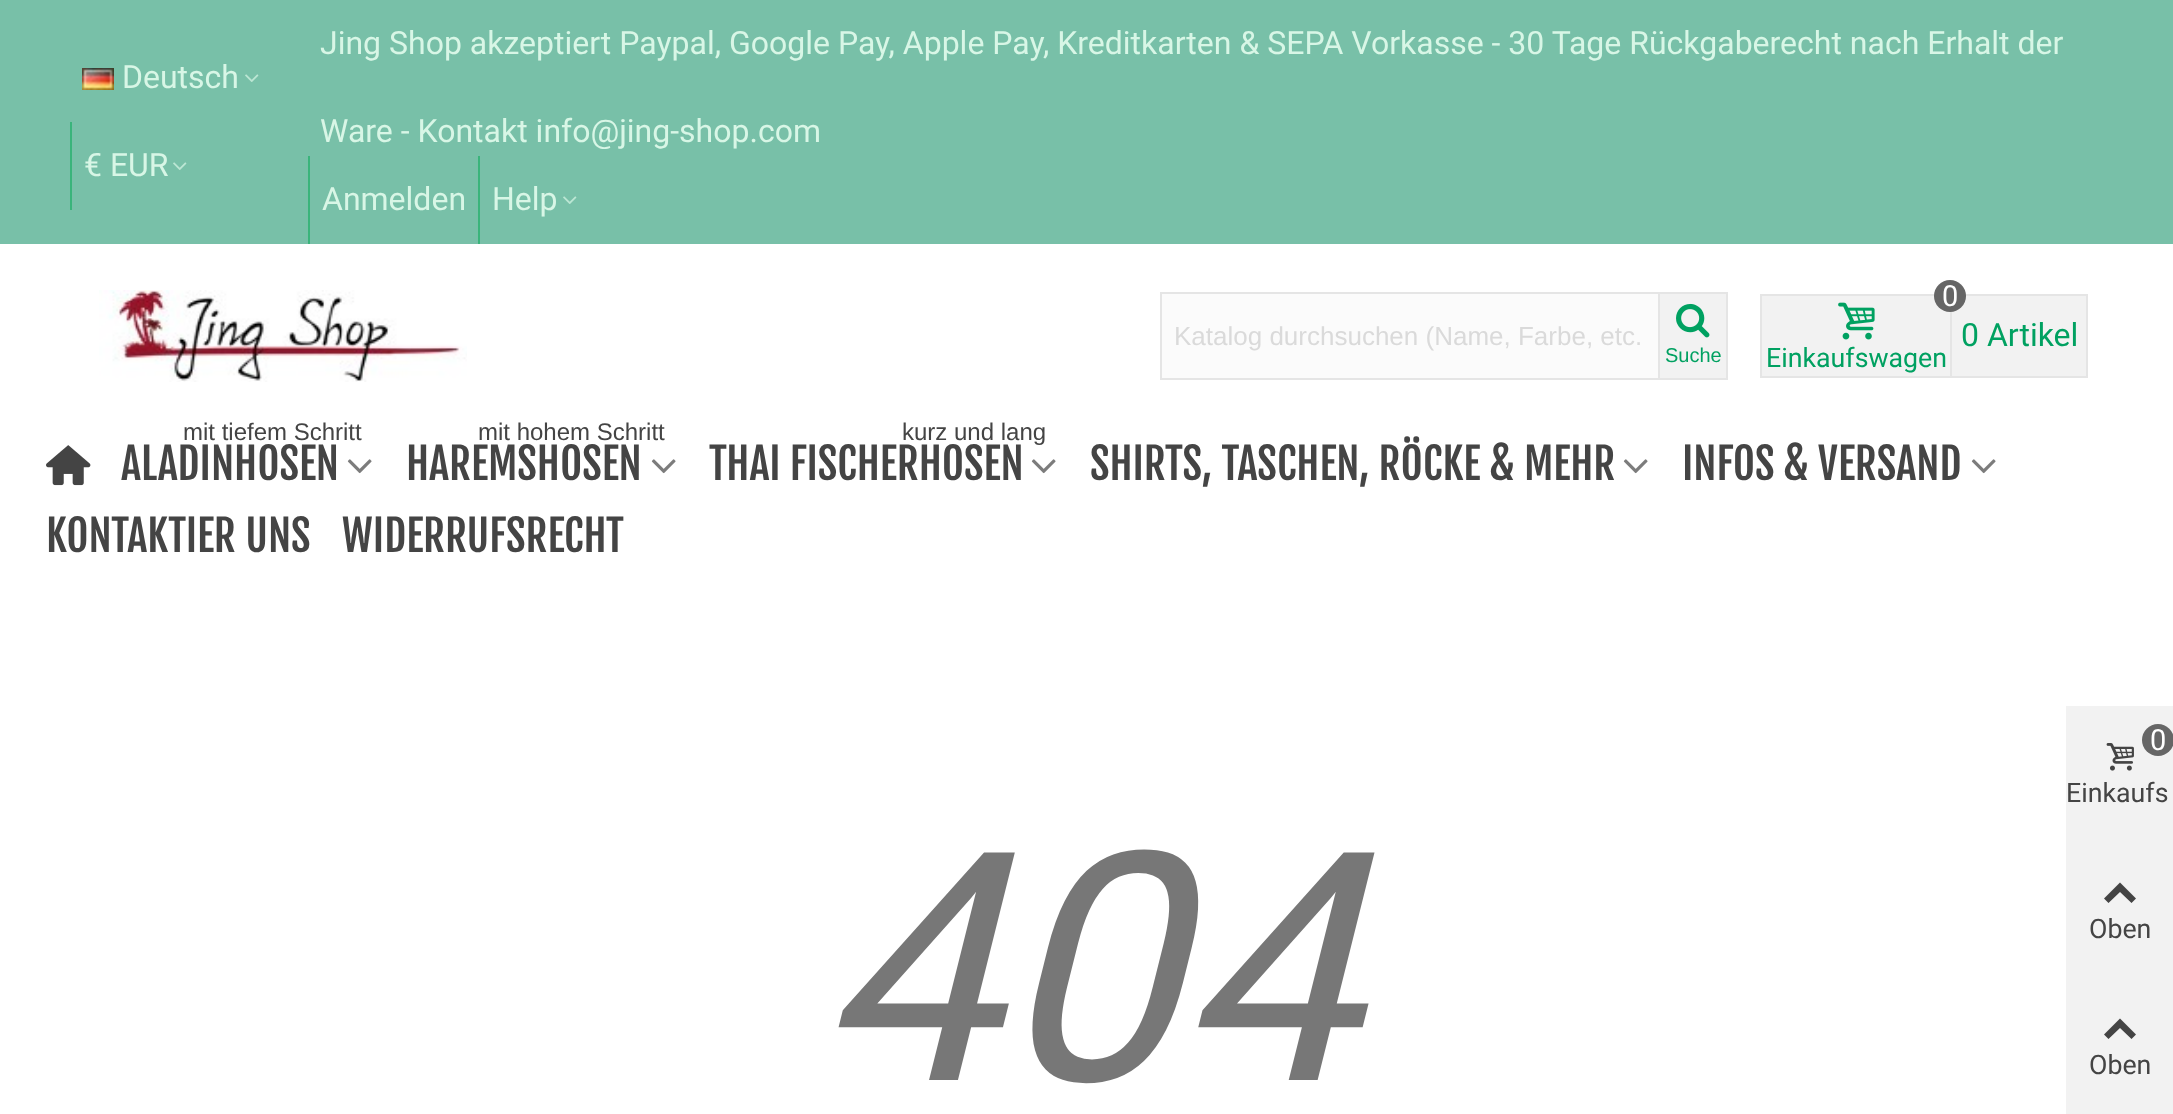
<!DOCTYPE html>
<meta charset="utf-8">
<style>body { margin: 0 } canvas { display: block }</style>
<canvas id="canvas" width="2173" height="1114"></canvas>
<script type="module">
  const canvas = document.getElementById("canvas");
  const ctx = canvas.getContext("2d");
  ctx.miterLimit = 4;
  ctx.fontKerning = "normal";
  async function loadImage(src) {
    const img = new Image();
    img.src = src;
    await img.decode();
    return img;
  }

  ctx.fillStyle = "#ffffff";
  ctx.fillRect(0, 0, 2173, 1114);
  ctx.fillStyle = "#78c0a8";
  ctx.fillRect(0, 0, 2173, 244);
  ctx.drawImage(await loadImage("img1.png"), 82, 68, 32, 22);
  ctx.font = "32px Roboto";
  ctx.fillStyle = "#d8f6e6";
  ctx.fillText("Deutsch", 122, 88);
  ctx.drawImage(await loadImage("img2.png"), 245, 74, 14, 8);
  ctx.fillStyle = "#3ab47b";
  ctx.fillRect(70, 122, 2, 88);
  ctx.fillStyle = "#d8f6e6";
  ctx.fillText("€ EUR", 84, 176);
  ctx.drawImage(await loadImage("img2.png"), 173, 162, 14, 8);
  ctx.fillText("Jing Shop akzeptiert Paypal, Google Pay, Apple Pay, Kreditkarten & SEPA Vorkasse - 30 Tage Rückgaberecht nach Erhalt der", 320, 54);
  ctx.fillText("Ware - Kontakt info@jing-shop.com", 320, 142);
  ctx.fillStyle = "#3ab47b";
  ctx.fillRect(308, 156, 2, 88);
  ctx.fillStyle = "#d8f6e6";
  ctx.fillText("Anmelden", 322, 210);
  ctx.fillStyle = "#3ab47b";
  ctx.fillRect(478, 156, 2, 88);
  ctx.fillStyle = "#d8f6e6";
  ctx.fillText("Help", 492, 210);
  ctx.drawImage(await loadImage("img2.png"), 563, 196, 14, 8);
  ctx.drawImage(await loadImage("img3.png"), 99, 290, 368, 92);
  ctx.strokeStyle = "#e5e5e5";
  ctx.lineWidth = 2;
  ctx.strokeRect(1161, 293, 566, 86);
  ctx.fillStyle = "#fbfbfb";
  ctx.fillRect(1162, 294, 496, 84);
  ctx.font = "26px Liberation Sans";
  ctx.fillStyle = "#dadada";
  ctx.fillText("Katalog durchsuchen (Name, Farbe, etc.", 1174, 345);
  ctx.fillStyle = "#f2f2f2";
  ctx.fillRect(1660, 294, 66, 84);
  ctx.fillStyle = "#e5e5e5";
  ctx.fillRect(1658, 294, 2, 84);
  ctx.drawImage(await loadImage("img4.png"), 1676, 303, 34, 35);
  ctx.font = "20px Liberation Sans";
  ctx.fillStyle = "#00a161";
  ctx.fillText("Suche", 1665, 362);
  ctx.fillStyle = "#f2f2f2";
  ctx.beginPath();
  ctx.rect(1761, 295, 190, 82);
  ctx.fill();
  ctx.stroke();
  ctx.fillRect(1952, 296, 134, 80);
  ctx.fillStyle = "#e5e5e5";
  ctx.fillRect(1965, 294, 123, 2);
  ctx.fillStyle = "#666666";
  ctx.beginPath();
  ctx.arc(1950, 296, 16, 0, Math.PI * 2);
  ctx.fill();
  ctx.font = "29px Roboto";
  ctx.fillStyle = "#ffffff";
  ctx.fillText("0", 1942, 306);
  ctx.drawImage(await loadImage("img5.png"), 1838, 302, 37, 38);
  ctx.font = "26.75px Roboto";
  ctx.fillStyle = "#00a161";
  ctx.fillText("Einkaufswagen", 1766, 367);
  ctx.fillStyle = "#e5e5e5";
  ctx.fillRect(2086, 294, 2, 84);
  ctx.fillRect(1978, 376, 110, 2);
  ctx.fillRect(1952, 376, 26, 2);
  ctx.font = "32px Roboto";
  ctx.fillStyle = "#00a161";
  ctx.fillText("0 Artikel", 1961, 346);
  ctx.drawImage(await loadImage("img6.png"), 46, 445, 45, 41);
  ctx.font = "24px Liberation Sans";
  ctx.fillStyle = "#444444";
  ctx.fillText("mit tiefem Schritt", 183, 440);
  ctx.font = "42.7px Fjalla One";
  ctx.fillText("ALADINHOSEN", 121, 480);
  ctx.drawImage(await loadImage("img7.png"), 347, 459, 25, 15);
  ctx.font = "24px Liberation Sans";
  ctx.fillText("mit hohem Schritt", 478, 440);
  ctx.font = "42.7px Fjalla One";
  ctx.fillText("HAREMSHOSEN", 406, 480);
  ctx.drawImage(await loadImage("img7.png"), 651, 459, 25, 15);
  ctx.font = "24px Liberation Sans";
  ctx.fillText("kurz und lang", 902, 440);
  ctx.font = "42.7px Fjalla One";
  ctx.fillText("THAI FISCHERHOSEN", 709, 480);
  ctx.drawImage(await loadImage("img7.png"), 1031, 459, 25, 15);
  ctx.fillText("SHIRTS, TASCHEN, RÖCKE & MEHR", 1090, 480);
  ctx.drawImage(await loadImage("img7.png"), 1623, 459, 25, 15);
  ctx.fillText("INFOS & VERSAND", 1682, 480);
  ctx.drawImage(await loadImage("img7.png"), 1971, 459, 25, 15);
  ctx.fillText("KONTAKTIER UNS", 46, 552);
  ctx.fillText("WIDERRUFSRECHT", 342, 552);
  ctx.font = "italic 320px Roboto";
  ctx.fillStyle = "#777777";
  ctx.fillText("404", 817, 1080);
  ctx.fillStyle = "#f2f2f2";
  ctx.fillRect(2066, 706, 107, 408);
  ctx.fillStyle = "#666666";
  ctx.beginPath();
  ctx.arc(2158, 740, 16, 0, Math.PI * 2);
  ctx.fill();
  ctx.font = "29px Roboto";
  ctx.fillStyle = "#ffffff";
  ctx.fillText("0", 2150, 750);
  ctx.drawImage(await loadImage("img8.png"), 2106, 743, 28, 28);
  ctx.font = "26.75px Roboto";
  ctx.fillStyle = "#444444";
  ctx.fillText("Einkaufs", 2066, 802);
  ctx.beginPath();
  ctx.moveTo(2104, 898.5);
  ctx.lineTo(2120, 882.5);
  ctx.lineTo(2136, 898.5);
  ctx.lineTo(2131.5, 903);
  ctx.lineTo(2120, 892);
  ctx.lineTo(2108.5, 903);
  ctx.closePath();
  ctx.fill();
  ctx.fillText("Oben", 2089, 938);
  ctx.beginPath();
  ctx.moveTo(2104, 1034.5);
  ctx.lineTo(2120, 1018.5);
  ctx.lineTo(2136, 1034.5);
  ctx.lineTo(2131.5, 1039);
  ctx.lineTo(2120, 1028);
  ctx.lineTo(2108.5, 1039);
  ctx.closePath();
  ctx.fill();
  ctx.fillText("Oben", 2089, 1074);
</script>
